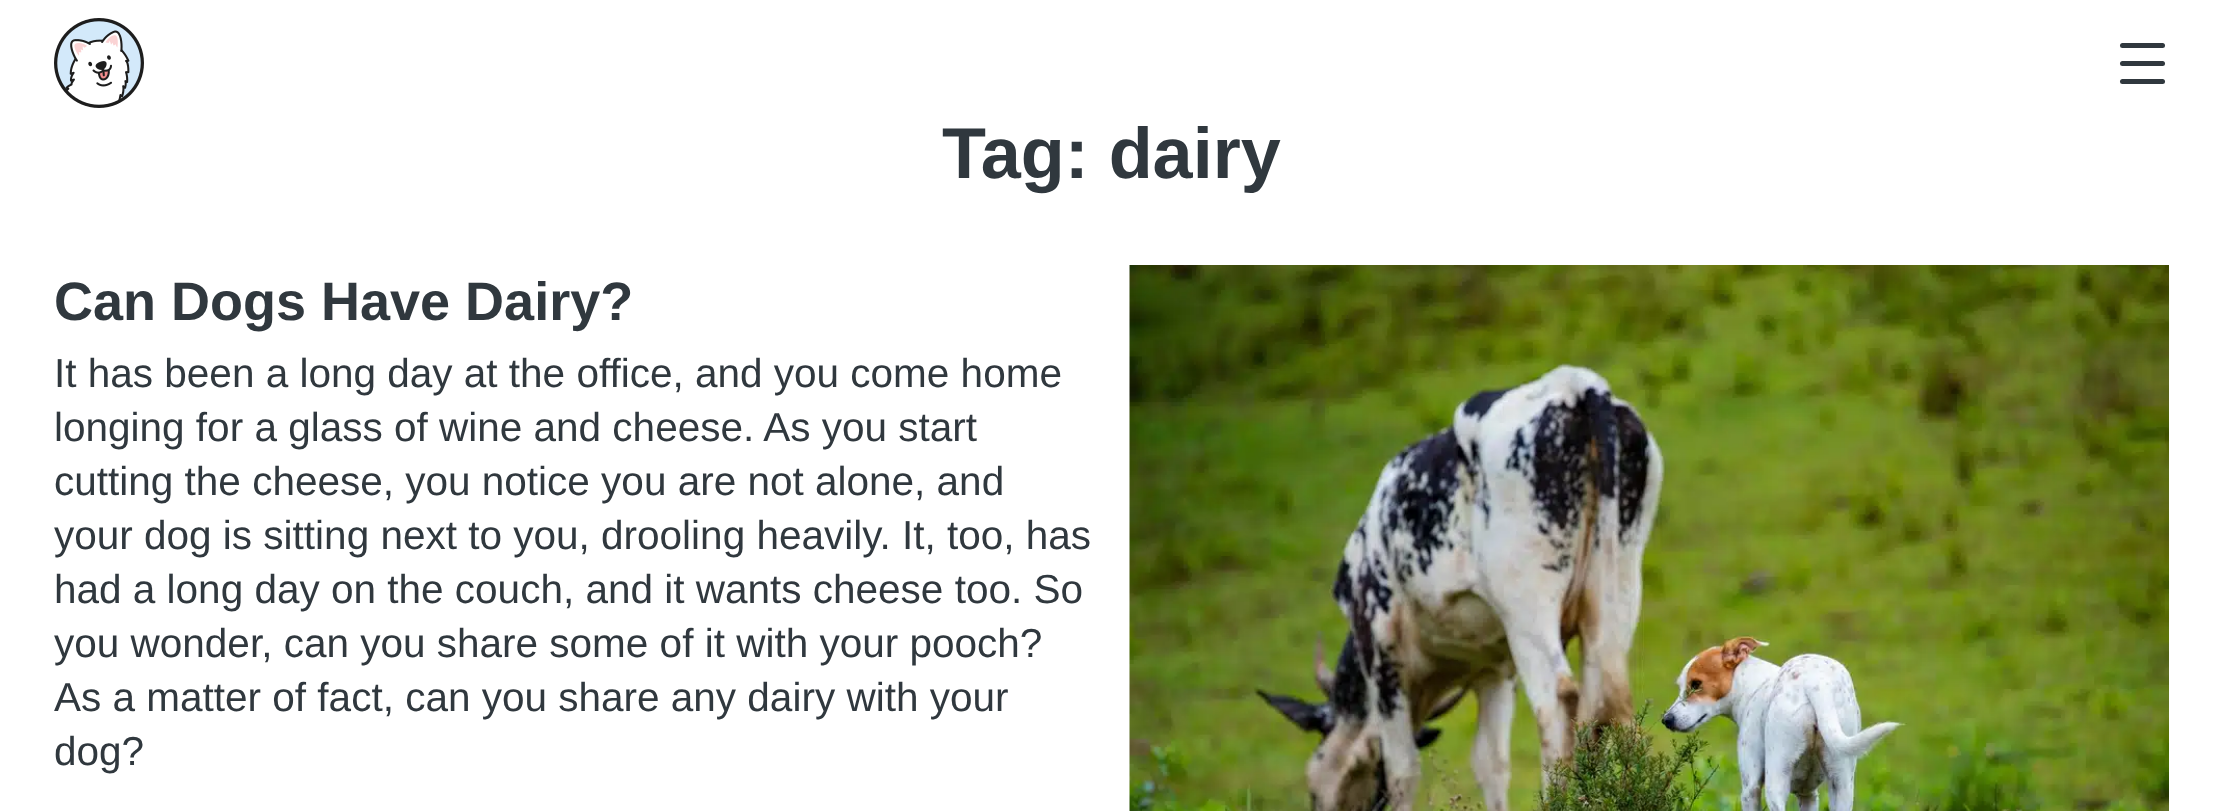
<!DOCTYPE html>
<meta charset="utf-8">
<style>body { margin: 0 } canvas { display: block }</style>
<canvas id="canvas" width="2222" height="811"></canvas>
<script type="module">
  const canvas = document.getElementById("canvas");
  const ctx = canvas.getContext("2d");
  ctx.miterLimit = 4;
  ctx.fontKerning = "normal";
  async function loadImage(src) {
    const img = new Image();
    img.src = src;
    await img.decode();
    return img;
  }

  ctx.fillStyle = "#ffffff";
  ctx.fillRect(0, 0, 2222, 811);
  ctx.font = "bold 72px Liberation Sans";
  ctx.fillStyle = "#30383e";
  ctx.fillText("Tag: dairy", 942, 178);
  ctx.fillStyle = "#ffffff";
  ctx.fillRect(1137, 125, 71, 1);
  ctx.drawImage(await loadImage("img1.png"), 54, 18, 90, 90);
  ctx.fillStyle = "#30383e";
  ctx.beginPath();
  ctx.roundRect(2120, 43, 45, 5, 2.5);
  ctx.fill();
  ctx.beginPath();
  ctx.roundRect(2120, 61, 45, 5, 2.5);
  ctx.fill();
  ctx.beginPath();
  ctx.roundRect(2120, 79, 45, 5, 2.5);
  ctx.fill();
  ctx.font = "bold 54px Liberation Sans";
  ctx.fillText("Can Dogs Have Dairy?", 54, 320);
  ctx.font = "40.5px Liberation Sans";
  ctx.fillText("It has been a long day at the office, and you come home", 54, 387);
  ctx.fillText("longing for a glass of wine and cheese. As you start", 54, 441);
  ctx.fillText("cutting the cheese, you notice you are not alone, and", 54, 495);
  ctx.fillText("your dog is sitting next to you, drooling heavily. It, too, has", 54, 549);
  ctx.fillText("had a long day on the couch, and it wants cheese too. So", 54, 603);
  ctx.fillText("you wonder, can you share some of it with your pooch?", 54, 657);
  ctx.fillText("As a matter of fact, can you share any dairy with your", 54, 711);
  ctx.fillText("dog?", 54, 765);
  ctx.drawImage(await loadImage("img2.png"), 1129, 265, 1040, 546);
</script>
